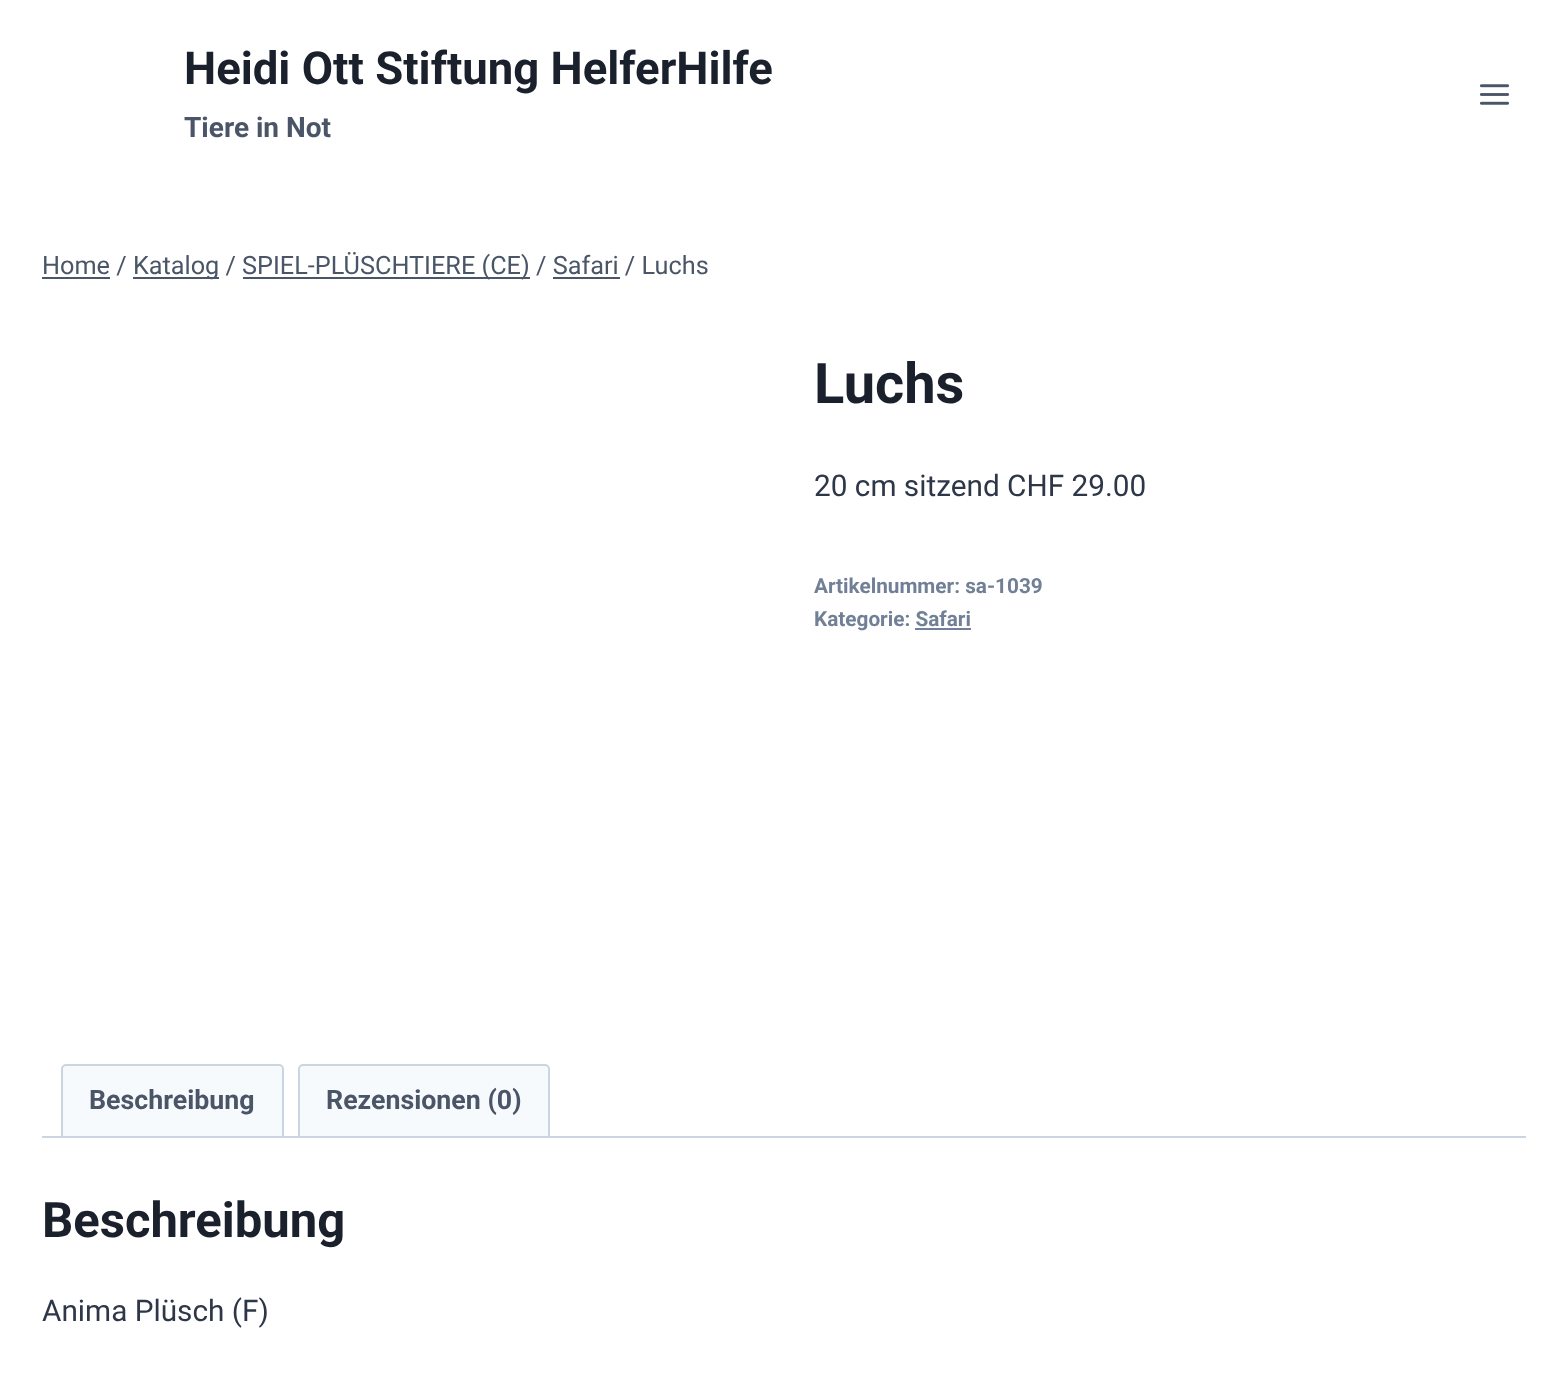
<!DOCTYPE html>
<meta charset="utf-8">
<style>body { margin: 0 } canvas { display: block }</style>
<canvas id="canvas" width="1567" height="1377"></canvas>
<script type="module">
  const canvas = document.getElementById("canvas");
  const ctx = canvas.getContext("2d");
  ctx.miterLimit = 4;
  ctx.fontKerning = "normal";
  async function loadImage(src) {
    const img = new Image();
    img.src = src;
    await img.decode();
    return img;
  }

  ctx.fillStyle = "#ffffff";
  ctx.fillRect(0, 0, 1567, 1377);
  ctx.font = "bold 45.5px Roboto";
  ctx.fillStyle = "#1a202c";
  ctx.fillText("Heidi Ott Stiftung HelferHilfe", 184, 84);
  ctx.font = "bold 28px Roboto";
  ctx.fillStyle = "#4a5568";
  ctx.fillText("Tiere in Not", 184, 137);
  ctx.drawImage(await loadImage("img1.png"), 1479, 84, 31, 21);
  ctx.font = "25.25px Roboto";
  ctx.fillText("Home /", 42, 274);
  ctx.fillRect(42, 277, 68, 2);
  ctx.fillRect(133, 277, 86, 2);
  ctx.fillText("Katalog /", 133, 274);
  ctx.fillRect(243, 277, 287, 2);
  ctx.fillText("SPIEL-PLÜSCHTIERE (CE) / Safari / Luchs", 242, 274);
  ctx.fillRect(553, 277, 67, 2);
  ctx.font = "bold 56px Roboto";
  ctx.fillStyle = "#1a202c";
  ctx.fillText("Luchs", 814, 403);
  ctx.font = "29.75px Roboto";
  ctx.fillStyle = "#2d3748";
  ctx.fillText("20 cm sitzend CHF 29.00", 814, 496);
  ctx.font = "bold 20.75px Roboto";
  ctx.fillStyle = "#718096";
  ctx.fillText("Artikelnummer: sa-1039", 814, 593);
  ctx.fillText("Kategorie: Safari", 814, 626);
  ctx.fillRect(915, 628, 56, 2);
  ctx.fillStyle = "#f7fafc";
  ctx.beginPath();
  ctx.roundRect(62, 1065, 221, 72, [4, 4, 0, 0]);
  ctx.fill();
  ctx.strokeStyle = "#cbd5e0";
  ctx.lineWidth = 2;
  ctx.stroke();
  ctx.font = "bold 26.75px Roboto";
  ctx.fillStyle = "#4a5568";
  ctx.fillText("Beschreibung", 89, 1109);
  ctx.fillStyle = "#f7fafc";
  ctx.beginPath();
  ctx.roundRect(299, 1065, 250, 72, [4, 4, 0, 0]);
  ctx.fill();
  ctx.stroke();
  ctx.fillStyle = "#4a5568";
  ctx.fillText("Rezensionen (0)", 326, 1109);
  ctx.fillStyle = "#cbd5e0";
  ctx.fillRect(42, 1136, 1484, 2);
  ctx.font = "bold 49px Roboto";
  ctx.fillStyle = "#1a202c";
  ctx.fillText("Beschreibung", 42, 1237);
  ctx.font = "29.75px Roboto";
  ctx.fillStyle = "#2d3748";
  ctx.fillText("Anima Plüsch (F)", 42, 1321);
</script>
